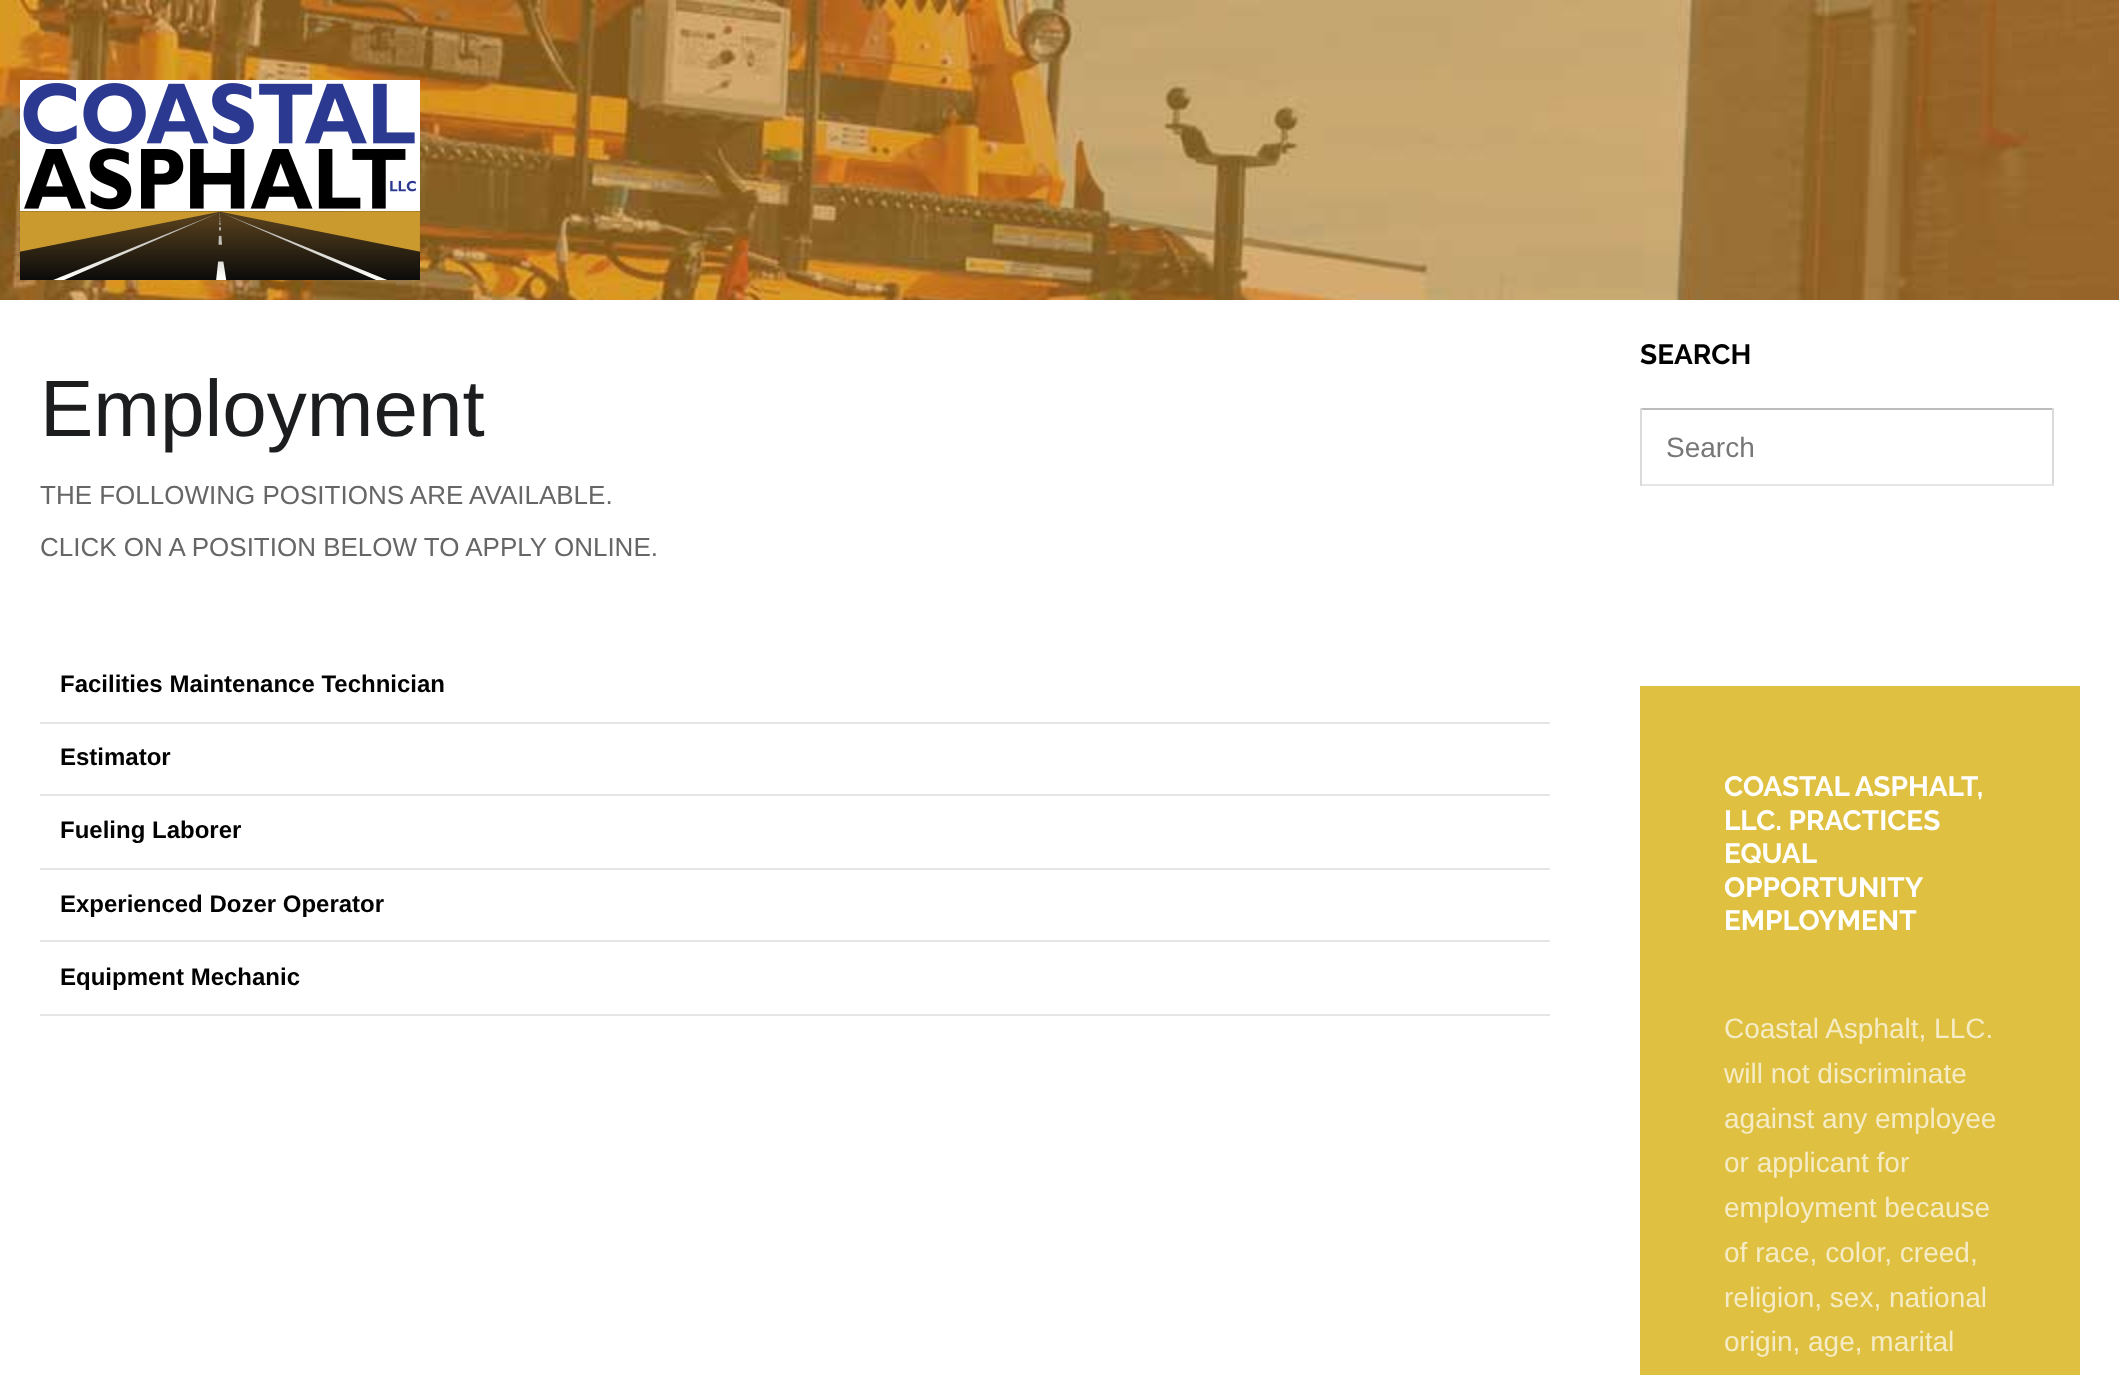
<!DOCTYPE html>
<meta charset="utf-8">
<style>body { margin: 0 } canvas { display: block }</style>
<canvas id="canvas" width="2119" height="1375"></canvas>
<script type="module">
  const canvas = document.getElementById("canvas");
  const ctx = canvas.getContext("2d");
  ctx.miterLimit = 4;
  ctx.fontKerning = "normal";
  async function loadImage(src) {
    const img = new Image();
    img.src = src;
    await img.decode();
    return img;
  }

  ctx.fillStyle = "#ffffff";
  ctx.fillRect(0, 0, 2119, 1375);
  ctx.drawImage(await loadImage("img1.png"), 0, 0, 2119, 300);
  ctx.drawImage(await loadImage("img2.png"), 20, 80, 400, 200);
  ctx.font = "80px Liberation Sans";
  ctx.fillStyle = "#1b1d1f";
  ctx.fillText("Employment", 40, 436);
  ctx.font = "26px Liberation Sans";
  ctx.fillStyle = "#666666";
  ctx.fillText("THE FOLLOWING POSITIONS ARE AVAILABLE.", 40, 504);
  ctx.fillText("CLICK ON A POSITION BELOW TO APPLY ONLINE.", 40, 556);
  ctx.fillStyle = "#e5e5e5";
  ctx.fillRect(40, 722, 1510, 2);
  ctx.font = "bold 24px Liberation Sans";
  ctx.fillStyle = "#010101";
  ctx.fillText("Facilities Maintenance Technician", 60, 692);
  ctx.fillStyle = "#e5e5e5";
  ctx.fillRect(40, 794, 1510, 2);
  ctx.fillStyle = "#010101";
  ctx.fillText("Estimator", 60, 765);
  ctx.fillStyle = "#e5e5e5";
  ctx.fillRect(40, 868, 1510, 2);
  ctx.fillStyle = "#010101";
  ctx.fillText("Fueling Laborer", 60, 838);
  ctx.fillStyle = "#e5e5e5";
  ctx.fillRect(40, 940, 1510, 2);
  ctx.fillStyle = "#010101";
  ctx.fillText("Experienced Dozer Operator", 60, 912);
  ctx.fillStyle = "#e5e5e5";
  ctx.fillRect(40, 1014, 1510, 2);
  ctx.fillStyle = "#010101";
  ctx.fillText("Equipment Mechanic", 60, 985);
  ctx.font = "bold 28px Raleway";
  ctx.fillText("SEARCH", 1640, 364);
  ctx.fillStyle = "#bcbcbc";
  ctx.fillRect(1640, 408, 414, 2);
  ctx.fillStyle = "#dadada";
  ctx.fillRect(2052, 408, 2, 78);
  ctx.fillStyle = "#e5e5e5";
  ctx.fillRect(1640, 484, 414, 2);
  ctx.fillStyle = "#dadada";
  ctx.fillRect(1640, 408, 2, 78);
  ctx.font = "28px Liberation Sans";
  ctx.fillStyle = "#777777";
  ctx.fillText("Search", 1666, 457);
  ctx.fillStyle = "#dfc040";
  ctx.fillRect(1640, 686, 440, 689);
  ctx.font = "bold 28px Raleway";
  ctx.fillStyle = "#ffffff";
  ctx.fillText("COASTAL ASPHALT,", 1724, 796);
  ctx.fillText("LLC. PRACTICES", 1724, 830);
  ctx.fillText("EQUAL", 1724, 863);
  ctx.fillText("OPPORTUNITY", 1724, 897);
  ctx.fillText("EMPLOYMENT", 1724, 930);
  ctx.font = "28px Liberation Sans";
  ctx.fillStyle = "#f5ecc6";
  ctx.fillText("Coastal Asphalt, LLC.", 1724, 1038);
  ctx.fillText("will not discriminate", 1724, 1083);
  ctx.fillText("against any employee", 1724, 1128);
  ctx.fillText("or applicant for", 1724, 1172);
  ctx.fillText("employment because", 1724, 1217);
  ctx.fillText("of race, color, creed,", 1724, 1262);
  ctx.fillText("religion, sex, national", 1724, 1307);
  ctx.fillText("origin, age, marital", 1724, 1351);
</script>
